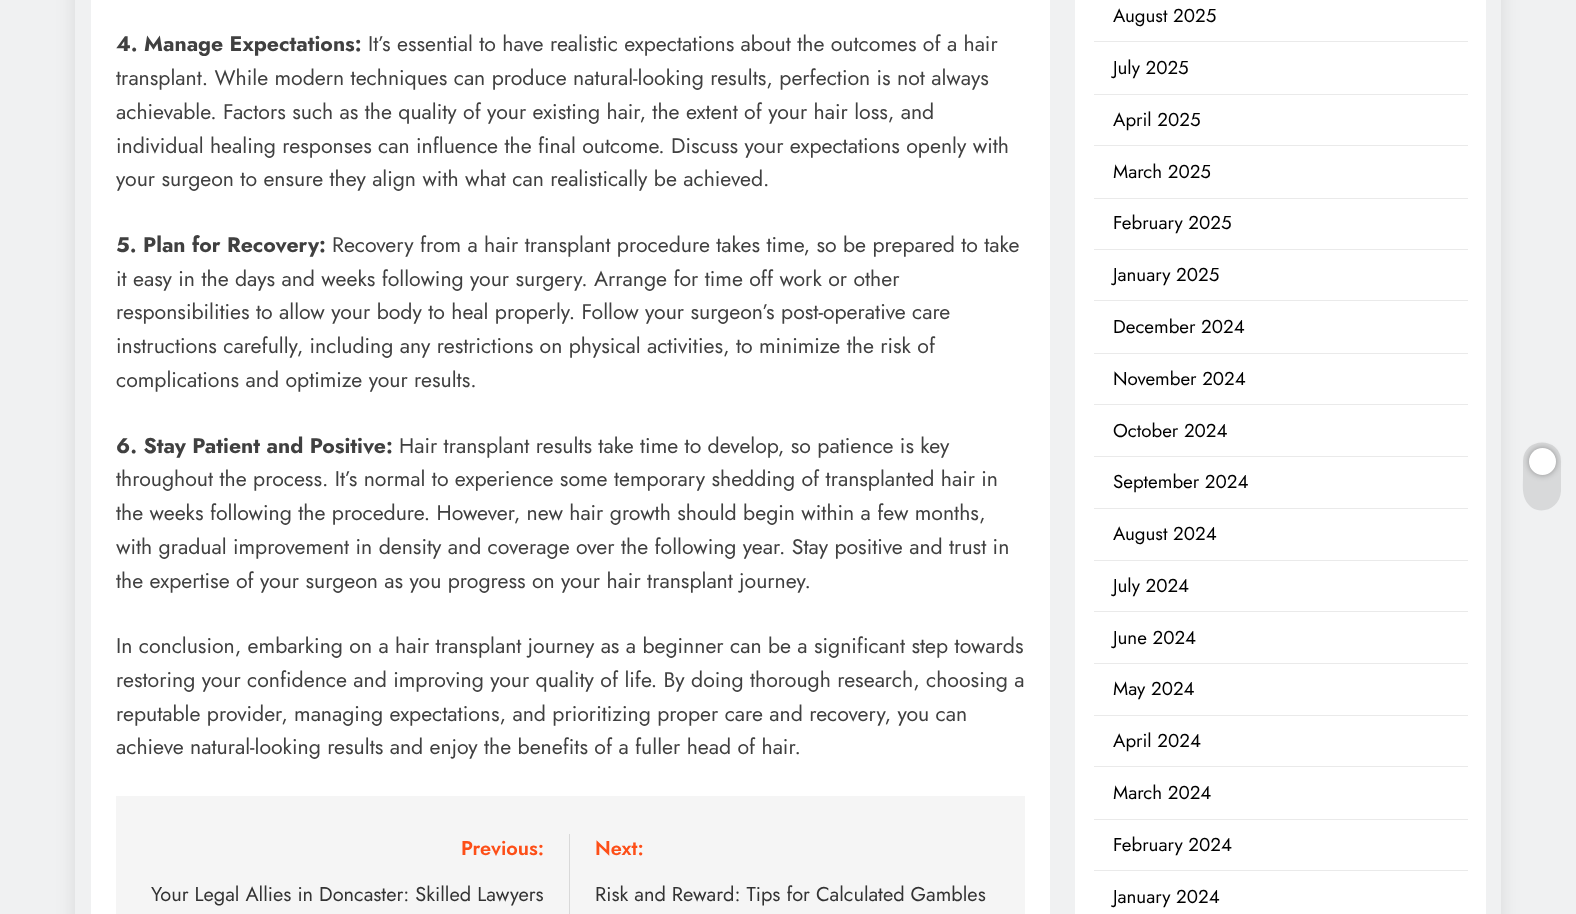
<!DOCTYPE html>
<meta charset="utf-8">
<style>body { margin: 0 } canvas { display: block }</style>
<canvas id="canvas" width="1576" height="914"></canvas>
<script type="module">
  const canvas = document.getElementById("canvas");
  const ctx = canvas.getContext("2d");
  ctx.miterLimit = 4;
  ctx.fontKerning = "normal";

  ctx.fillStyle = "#f0f1f2";
  ctx.fillRect(0, 0, 1576, 914);
  ctx.save();
  ctx.beginPath();
  ctx.moveTo(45, 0);
  ctx.lineTo(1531, 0);
  ctx.lineTo(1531, 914);
  ctx.lineTo(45, 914);
  ctx.closePath();
  ctx.moveTo(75, -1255);
  ctx.lineTo(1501, -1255);
  ctx.lineTo(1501, 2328);
  ctx.lineTo(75, 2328);
  ctx.closePath();
  ctx.clip("evenodd");
  ctx.fillStyle = "rgba(0, 0, 0, 0.1)";
  ctx.filter = "blur(9.5px)";
  ctx.beginPath();
  ctx.rect(75, -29, 1426, 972);
  ctx.fill();
  ctx.filter = "none";
  ctx.restore();
  ctx.fillStyle = "#ffffff";
  ctx.fillRect(91, 0, 959, 914);
  ctx.font = "bold 21.25px Jost";
  ctx.fillStyle = "#404040";
  ctx.fillText("4. Manage Expectations:", 116, 51);
  ctx.font = "21.25px Jost";
  ctx.fillText("It’s essential to have realistic expectations about the outcomes of a hair", 368, 51);
  ctx.fillText("transplant. While modern techniques can produce natural-looking results, perfection is not always", 116, 85);
  ctx.fillText("achievable. Factors such as the quality of your existing hair, the extent of your hair loss, and", 116, 119);
  ctx.fillText("individual healing responses can influence the final outcome. Discuss your expectations openly with", 116, 153);
  ctx.fillText("your surgeon to ensure they align with what can realistically be achieved.", 116, 186);
  ctx.font = "bold 21.25px Jost";
  ctx.fillText("5. Plan for Recovery:", 116, 252);
  ctx.font = "21.25px Jost";
  ctx.fillText("Recovery from a hair transplant procedure takes time, so be prepared to take", 332, 252);
  ctx.fillText("it easy in the days and weeks following your surgery. Arrange for time off work or other", 116, 286);
  ctx.fillText("responsibilities to allow your body to heal properly. Follow your surgeon’s post-operative care", 116, 319);
  ctx.fillText("instructions carefully, including any restrictions on physical activities, to minimize the risk of", 116, 353);
  ctx.fillText("complications and optimize your results.", 116, 387);
  ctx.font = "bold 21.25px Jost";
  ctx.fillText("6. Stay Patient and Positive:", 116, 453);
  ctx.font = "21.25px Jost";
  ctx.fillText("Hair transplant results take time to develop, so patience is key", 399, 453);
  ctx.fillText("throughout the process. It’s normal to experience some temporary shedding of transplanted hair in", 116, 486);
  ctx.fillText("the weeks following the procedure. However, new hair growth should begin within a few months,", 116, 520);
  ctx.fillText("with gradual improvement in density and coverage over the following year. Stay positive and trust in", 116, 554);
  ctx.fillText("the expertise of your surgeon as you progress on your hair transplant journey.", 116, 588);
  ctx.fillText("In conclusion, embarking on a hair transplant journey as a beginner can be a significant step towards", 116, 653);
  ctx.fillText("restoring your confidence and improving your quality of life. By doing thorough research, choosing a", 116, 687);
  ctx.fillText("reputable provider, managing expectations, and prioritizing proper care and recovery, you can", 116, 721);
  ctx.fillText("achieve natural-looking results and enjoy the benefits of a fuller head of hair.", 116, 754);
  ctx.fillStyle = "#f5f5f5";
  ctx.fillRect(116, 796, 909, 118);
  ctx.fillStyle = "#d9d9d9";
  ctx.fillRect(569, 834, 1, 80);
  ctx.font = "600 20px Jost";
  ctx.fillStyle = "#fd4f18";
  ctx.fillText("Previous:", 461, 855);
  ctx.font = "20px Jost";
  ctx.fillStyle = "#333333";
  ctx.fillText("Your Legal Allies in Doncaster: Skilled Lawyers", 151, 901);
  ctx.font = "600 20px Jost";
  ctx.fillStyle = "#fd4f18";
  ctx.fillText("Next:", 595, 855);
  ctx.font = "20px Jost";
  ctx.fillStyle = "#333333";
  ctx.fillText("Risk and Reward: Tips for Calculated Gambles", 595, 901);
  ctx.fillStyle = "#ffffff";
  ctx.fillRect(1075, 0, 411, 914);
  ctx.fillStyle = "#eaeaea";
  ctx.fillRect(1094, 41, 374, 1);
  ctx.font = "18.75px Jost";
  ctx.fillStyle = "#000000";
  ctx.fillText("August 2025", 1113, 22);
  ctx.fillStyle = "#eaeaea";
  ctx.fillRect(1094, 94, 374, 1);
  ctx.fillStyle = "#000000";
  ctx.fillText("July 2025", 1113, 74);
  ctx.fillStyle = "#eaeaea";
  ctx.fillRect(1094, 145, 374, 1);
  ctx.fillStyle = "#000000";
  ctx.fillText("April 2025", 1113, 126);
  ctx.fillStyle = "#eaeaea";
  ctx.fillRect(1094, 198, 374, 1);
  ctx.fillStyle = "#000000";
  ctx.fillText("March 2025", 1113, 178);
  ctx.fillStyle = "#eaeaea";
  ctx.fillRect(1094, 249, 374, 1);
  ctx.fillStyle = "#000000";
  ctx.fillText("February 2025", 1113, 229);
  ctx.fillStyle = "#eaeaea";
  ctx.fillRect(1094, 300, 374, 1);
  ctx.fillStyle = "#000000";
  ctx.fillText("January 2025", 1113, 281);
  ctx.fillStyle = "#eaeaea";
  ctx.fillRect(1094, 353, 374, 1);
  ctx.fillStyle = "#000000";
  ctx.fillText("December 2024", 1113, 333);
  ctx.fillStyle = "#eaeaea";
  ctx.fillRect(1094, 404, 374, 1);
  ctx.fillStyle = "#000000";
  ctx.fillText("November 2024", 1113, 385);
  ctx.fillStyle = "#eaeaea";
  ctx.fillRect(1094, 456, 374, 1);
  ctx.fillStyle = "#000000";
  ctx.fillText("October 2024", 1113, 437);
  ctx.fillStyle = "#eaeaea";
  ctx.fillRect(1094, 508, 374, 1);
  ctx.fillStyle = "#000000";
  ctx.fillText("September 2024", 1113, 488);
  ctx.fillStyle = "#eaeaea";
  ctx.fillRect(1094, 560, 374, 1);
  ctx.fillStyle = "#000000";
  ctx.fillText("August 2024", 1113, 540);
  ctx.fillStyle = "#eaeaea";
  ctx.fillRect(1094, 611, 374, 1);
  ctx.fillStyle = "#000000";
  ctx.fillText("July 2024", 1113, 592);
  ctx.fillStyle = "#eaeaea";
  ctx.fillRect(1094, 663, 374, 1);
  ctx.fillStyle = "#000000";
  ctx.fillText("June 2024", 1113, 644);
  ctx.fillStyle = "#eaeaea";
  ctx.fillRect(1094, 715, 374, 1);
  ctx.fillStyle = "#000000";
  ctx.fillText("May 2024", 1113, 695);
  ctx.fillStyle = "#eaeaea";
  ctx.fillRect(1094, 766, 374, 1);
  ctx.fillStyle = "#000000";
  ctx.fillText("April 2024", 1113, 747);
  ctx.fillStyle = "#eaeaea";
  ctx.fillRect(1094, 819, 374, 1);
  ctx.fillStyle = "#000000";
  ctx.fillText("March 2024", 1113, 799);
  ctx.fillStyle = "#eaeaea";
  ctx.fillRect(1094, 870, 374, 1);
  ctx.fillStyle = "#000000";
  ctx.fillText("February 2024", 1113, 851);
  ctx.fillText("January 2024", 1113, 903);
  ctx.fillStyle = "#d8d9da";
  ctx.beginPath();
  ctx.moveTo(1561, 461);
  ctx.lineTo(1561, 491);
  ctx.bezierCurveTo(1560, 512, 1533, 518, 1525, 499);
  ctx.bezierCurveTo(1522, 492, 1523, 484, 1523, 476);
  ctx.lineTo(1523, 461);
  ctx.bezierCurveTo(1524, 436, 1561, 437, 1561, 461);
  ctx.closePath();
  ctx.fill();
  ctx.fillStyle = "rgba(0, 0, 0, 0.35)";
  ctx.filter = "blur(3px)";
  ctx.beginPath();
  ctx.roundRect(1529, 448, 27, 27, 13.5);
  ctx.fill();
  ctx.filter = "none";
  ctx.fillStyle = "#ffffff";
  ctx.beginPath();
  ctx.arc(1542.5, 461.5, 13.5, 0, Math.PI * 2);
  ctx.fill();
</script>
